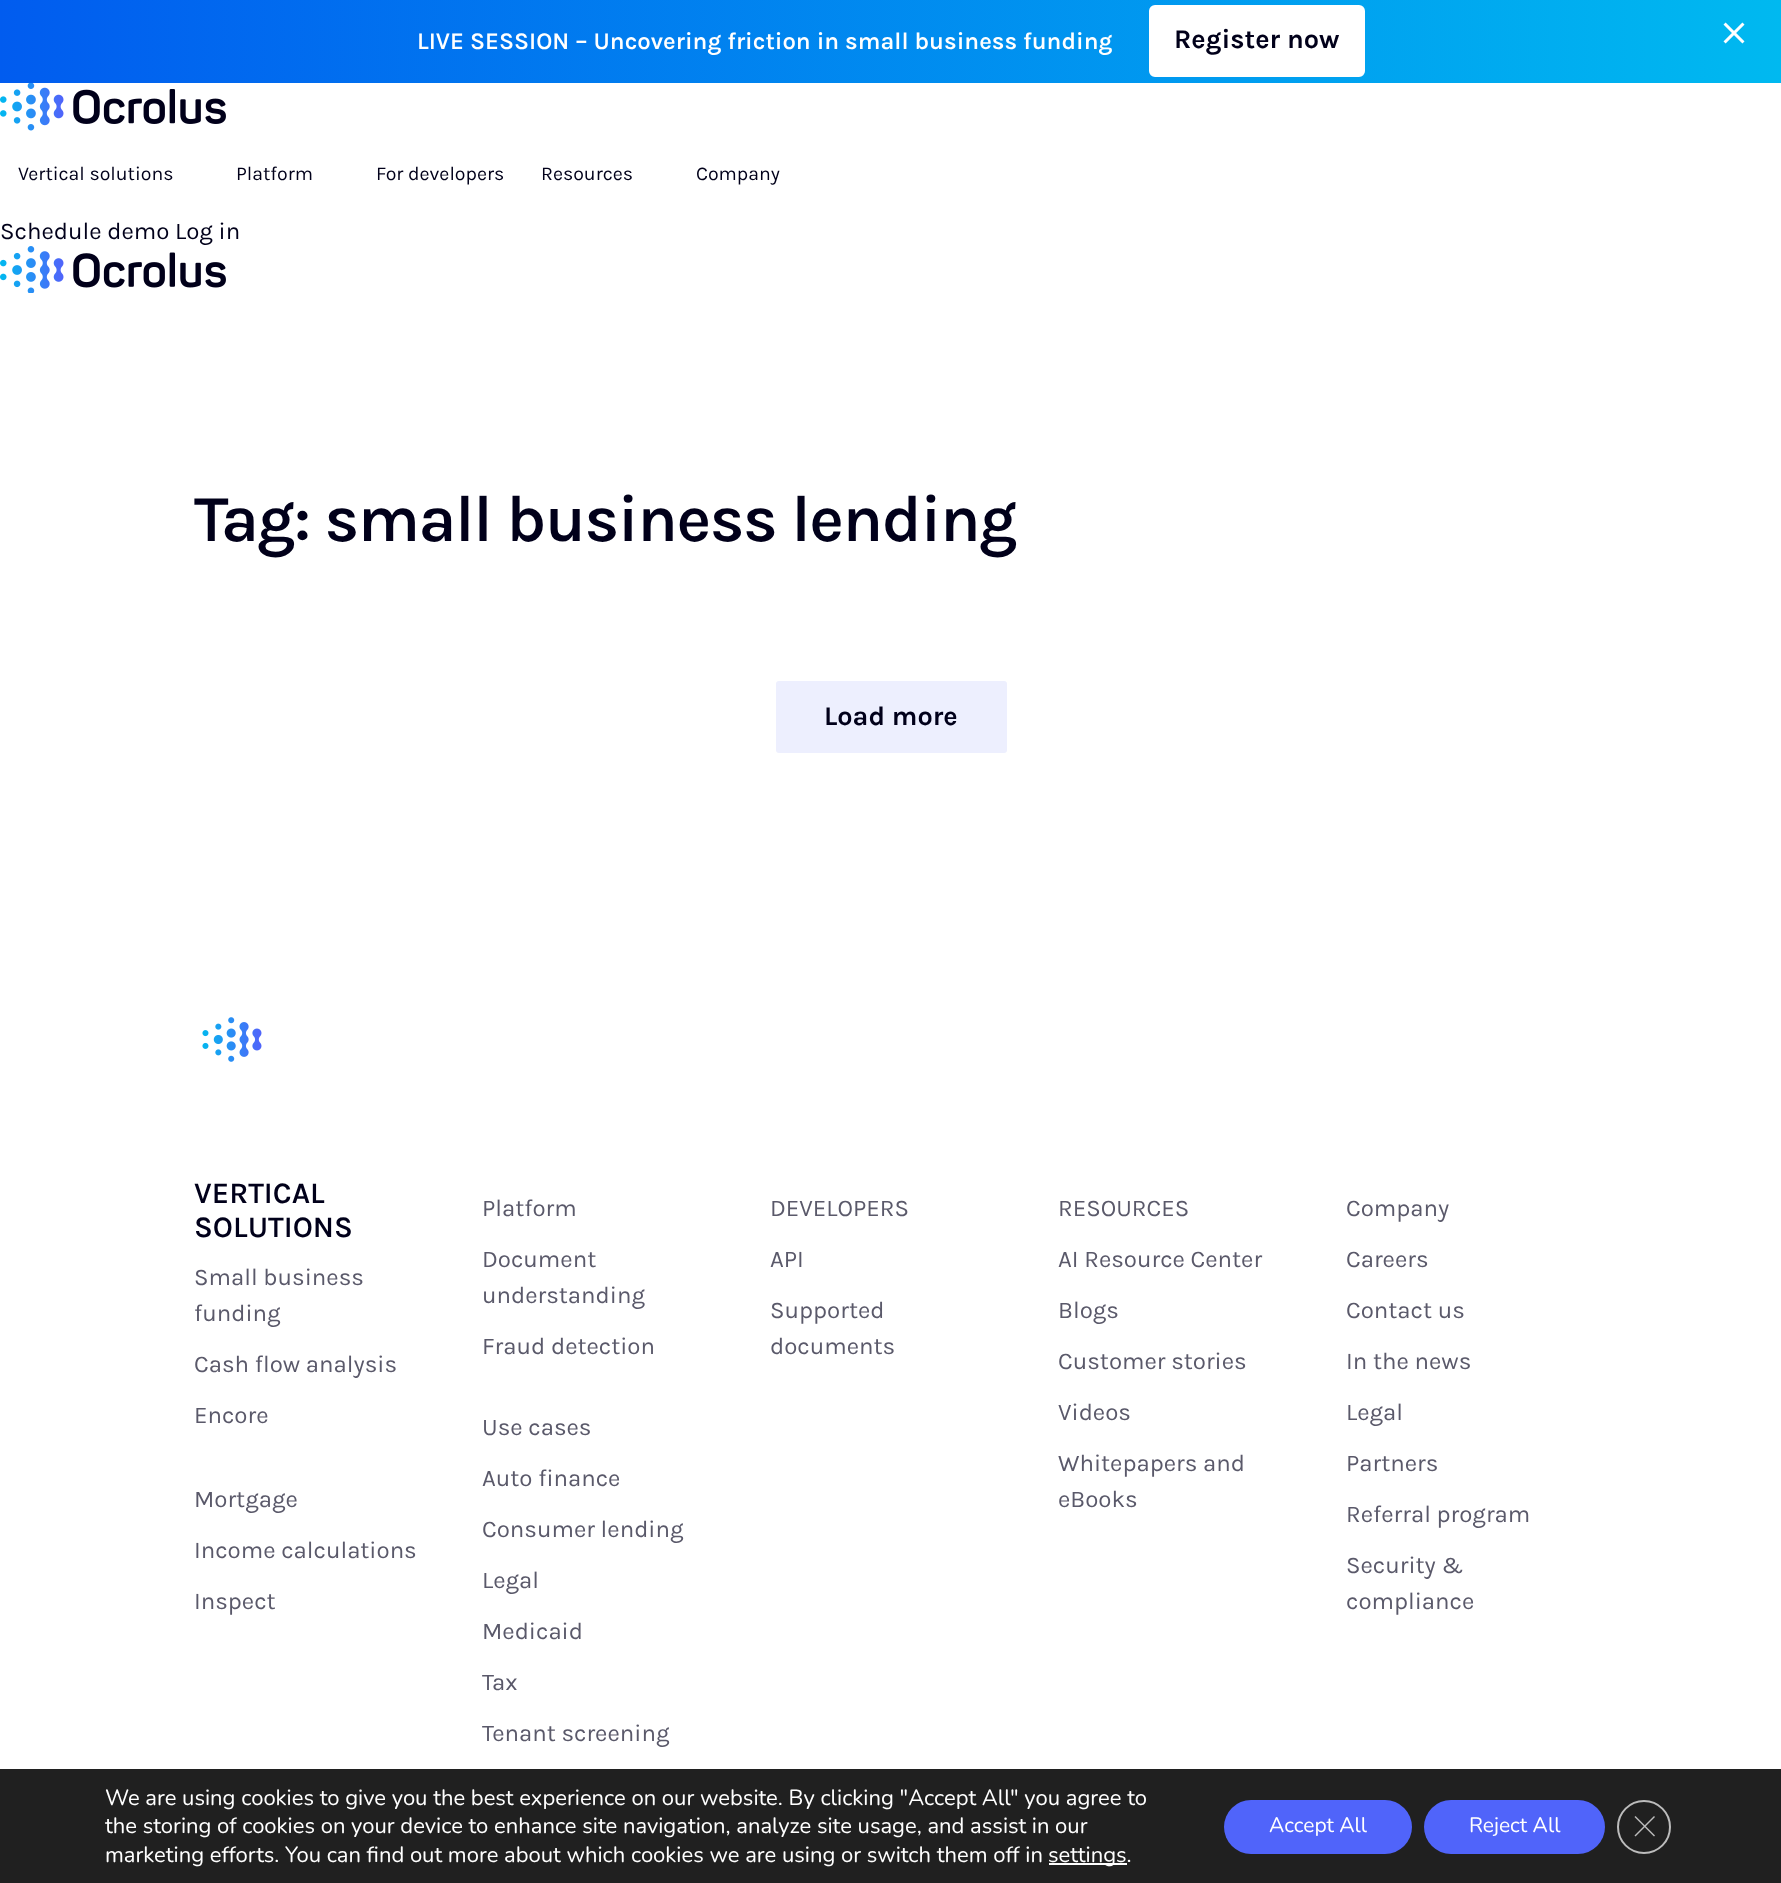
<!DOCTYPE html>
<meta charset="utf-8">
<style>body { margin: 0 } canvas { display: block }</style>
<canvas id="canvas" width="1781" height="1883"></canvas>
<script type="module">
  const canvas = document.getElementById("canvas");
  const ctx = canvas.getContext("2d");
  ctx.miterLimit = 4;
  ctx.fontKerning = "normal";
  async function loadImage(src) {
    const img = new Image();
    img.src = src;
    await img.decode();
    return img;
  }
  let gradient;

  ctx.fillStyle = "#ffffff";
  ctx.fillRect(0, 0, 1781, 1883);
  gradient = ctx.createLinearGradient(0, 41, 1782, 40);
  gradient.addColorStop(0, "#015cef");
  gradient.addColorStop(1, "#00b9f0");
  ctx.fillStyle = gradient;
  ctx.fillRect(0, 0, 1781, 83);
  ctx.font = "600 24px Karla";
  ctx.fillStyle = "#ffffff";
  ctx.fillText("LIVE SESSION – Uncovering friction in small business funding", 417, 49);
  ctx.beginPath();
  ctx.roundRect(1150, 6, 214, 70, 5);
  ctx.fill();
  ctx.strokeStyle = "#ffffff";
  ctx.lineWidth = 2;
  ctx.stroke();
  ctx.font = "bold 27px Karla";
  ctx.fillStyle = "#01001a";
  ctx.fillText("Register now", 1174, 48);
  ctx.drawImage(await loadImage("img1.png"), 1723, 22, 22, 22);
  ctx.drawImage(await loadImage("img2.png"), 0, 83, 226, 48);
  ctx.font = "19.5px Karla";
  ctx.fillText("Vertical solutions", 18, 180);
  ctx.fillText("Platform", 236, 180);
  ctx.fillText("For developers", 376, 180);
  ctx.fillText("Resources", 541, 180);
  ctx.fillText("Company", 696, 180);
  ctx.font = "24px Karla";
  ctx.fillText("Schedule demo Log in", 0, 239);
  ctx.drawImage(await loadImage("img3.png"), 0, 246, 226, 47);
  ctx.letterSpacing = "-1.5px";
  ctx.font = "600 66px Karla";
  ctx.fillText("Tag: small business lending", 194, 541);
  ctx.fillStyle = "#edeffe";
  ctx.beginPath();
  ctx.roundRect(776, 681, 231, 72, 3);
  ctx.fill();
  ctx.letterSpacing = "0px";
  ctx.font = "bold 27px Karla";
  ctx.fillStyle = "#01001a";
  ctx.fillText("Load more", 824, 725);
  ctx.drawImage(await loadImage("img4.png"), 202, 1017, 60, 45);
  ctx.font = "600 30px Karla";
  ctx.fillText("VERTICAL", 194, 1203);
  ctx.fillText("SOLUTIONS", 194, 1237);
  ctx.font = "24px Karla";
  ctx.fillStyle = "#5a596a";
  ctx.fillText("Small business", 194, 1285);
  ctx.fillText("funding", 194, 1321);
  ctx.fillText("Cash flow analysis", 194, 1372);
  ctx.fillText("Encore", 194, 1423);
  ctx.fillText("Mortgage", 194, 1507);
  ctx.fillText("Income calculations", 194, 1558);
  ctx.fillText("Inspect", 194, 1609);
  ctx.fillText("Platform", 482, 1216);
  ctx.fillText("Document", 482, 1267);
  ctx.fillText("understanding", 482, 1303);
  ctx.fillText("Fraud detection", 482, 1354);
  ctx.fillText("Use cases", 482, 1435);
  ctx.fillText("Auto finance", 482, 1486);
  ctx.fillText("Consumer lending", 482, 1537);
  ctx.fillText("Legal", 482, 1588);
  ctx.fillText("Medicaid", 482, 1639);
  ctx.fillText("Tax", 482, 1690);
  ctx.fillText("Tenant screening", 482, 1741);
  ctx.fillText("DEVELOPERS", 770, 1216);
  ctx.fillText("API", 770, 1267);
  ctx.fillText("Supported", 770, 1318);
  ctx.fillText("documents", 770, 1354);
  ctx.fillText("RESOURCES", 1058, 1216);
  ctx.fillText("AI Resource Center", 1058, 1267);
  ctx.fillText("Blogs", 1058, 1318);
  ctx.fillText("Customer stories", 1058, 1369);
  ctx.fillText("Videos", 1058, 1420);
  ctx.fillText("Whitepapers and", 1058, 1471);
  ctx.fillText("eBooks", 1058, 1507);
  ctx.fillText("Company", 1346, 1216);
  ctx.fillText("Careers", 1346, 1267);
  ctx.fillText("Contact us", 1346, 1318);
  ctx.fillText("In the news", 1346, 1369);
  ctx.fillText("Legal", 1346, 1420);
  ctx.fillText("Partners", 1346, 1471);
  ctx.fillText("Referral program", 1346, 1522);
  ctx.fillText("Security &", 1346, 1573);
  ctx.fillText("compliance", 1346, 1609);
  ctx.fillStyle = "#202020";
  ctx.fillRect(0, 1769, 1781, 114);
  ctx.font = "22px Nunito";
  ctx.fillStyle = "#ffffff";
  ctx.fillText("We are using cookies to give you the best experience on our website. By clicking \"Accept All\" you agree to", 105, 1805);
  ctx.fillText("the storing of cookies on your device to enhance site navigation, analyze site usage, and assist in our", 105, 1833);
  ctx.fillText("marketing efforts. You can find out more about which cookies we are using or switch them off in", 105, 1862);
  ctx.fillRect(1049, 1863, 78, 2);
  ctx.fillText("settings.", 1048, 1862);
  ctx.fillStyle = "#5064fa";
  ctx.beginPath();
  ctx.roundRect(1224, 1800, 188, 54, 27);
  ctx.fill();
  ctx.font = "21px Nunito";
  ctx.fillStyle = "#ffffff";
  ctx.fillText("Accept All", 1269, 1832);
  ctx.fillStyle = "#5064fa";
  ctx.beginPath();
  ctx.roundRect(1424, 1800, 181, 54, 27);
  ctx.fill();
  ctx.fillStyle = "#ffffff";
  ctx.fillText("Reject All", 1469, 1832);
  ctx.beginPath();
  ctx.arc(1644, 1827, 26, 0, Math.PI * 2);
  ctx.strokeStyle = "#bcbcbc";
  ctx.stroke();
  ctx.fillStyle = "#bcbcbc";
  ctx.beginPath();
  ctx.moveTo(1654, 1816);
  ctx.lineTo(1655, 1817);
  ctx.lineTo(1635.5, 1836.5);
  ctx.lineTo(1634.5, 1835.5);
  ctx.closePath();
  ctx.fill();
  ctx.beginPath();
  ctx.moveTo(1634.5, 1817);
  ctx.lineTo(1635.5, 1816);
  ctx.lineTo(1655, 1835.5);
  ctx.lineTo(1654, 1836.5);
  ctx.closePath();
  ctx.fill();
</script>
